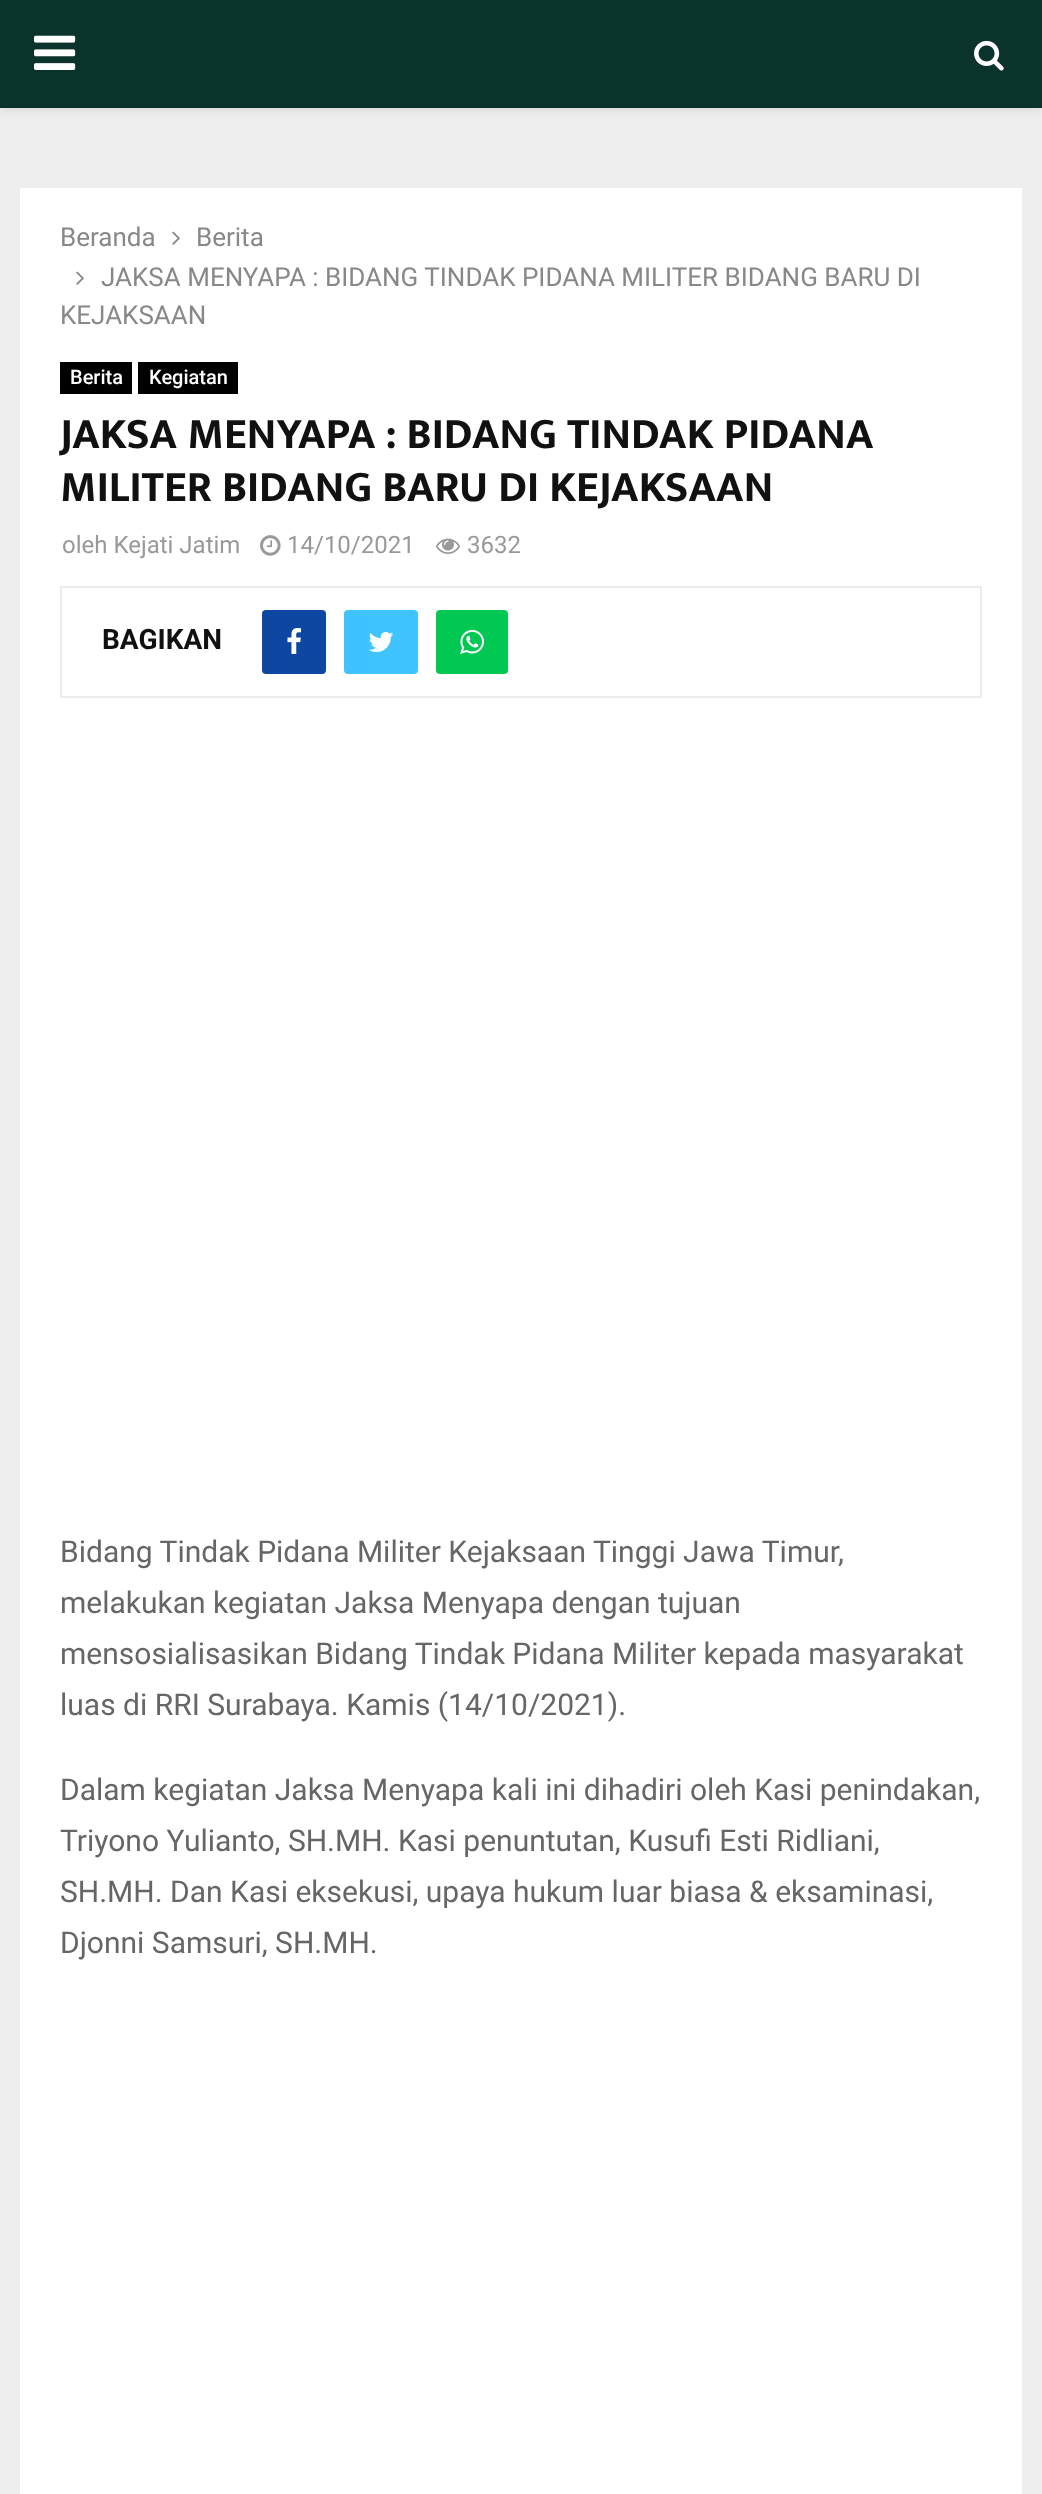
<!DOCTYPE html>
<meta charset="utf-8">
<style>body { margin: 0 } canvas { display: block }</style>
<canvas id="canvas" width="1042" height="2494"></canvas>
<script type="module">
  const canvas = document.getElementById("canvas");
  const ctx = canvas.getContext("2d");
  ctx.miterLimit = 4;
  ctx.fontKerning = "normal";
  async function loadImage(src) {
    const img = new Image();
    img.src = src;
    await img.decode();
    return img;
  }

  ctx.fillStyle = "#eeeeee";
  ctx.fillRect(0, 0, 1042, 2494);
  ctx.fillStyle = "rgba(190, 190, 190, 0.46)";
  ctx.filter = "blur(5px)";
  ctx.beginPath();
  ctx.rect(0, 2, 1042, 108);
  ctx.fill();
  ctx.filter = "none";
  ctx.fillStyle = "#0a332b";
  ctx.fillRect(0, 0, 1042, 108);
  ctx.drawImage(await loadImage("img1.png"), 34, 35, 42, 35);
  ctx.drawImage(await loadImage("img2.png"), 974, 40, 30, 31);
  ctx.fillStyle = "#ffffff";
  ctx.fillRect(20, 188, 1002, 2306);
  ctx.font = "26px Roboto";
  ctx.fillStyle = "#888888";
  ctx.fillText("Beranda", 60, 246);
  ctx.drawImage(await loadImage("img3.png"), 172, 231, 8, 14);
  ctx.fillText("Berita", 196, 246);
  ctx.drawImage(await loadImage("img3.png"), 76, 271, 8, 14);
  ctx.fillText("JAKSA MENYAPA : BIDANG TINDAK PIDANA MILITER BIDANG BARU DI", 101, 286);
  ctx.fillText("KEJAKSAAN", 60, 324);
  ctx.fillStyle = "#000000";
  ctx.fillRect(60, 362, 72, 32);
  ctx.font = "500 20px Roboto";
  ctx.fillStyle = "#ffffff";
  ctx.fillText("Berita", 70, 384);
  ctx.fillStyle = "#000000";
  ctx.fillRect(138, 362, 100, 32);
  ctx.fillStyle = "#ffffff";
  ctx.fillText("Kegiatan", 149, 384);
  ctx.font = "bold 44px Mukta Vaani";
  ctx.fillStyle = "#111111";
  ctx.fillText("JAKSA MENYAPA : BIDANG TINDAK PIDANA", 60, 448);
  ctx.fillText("MILITER BIDANG BARU DI KEJAKSAAN", 60, 501);
  ctx.font = "24px Roboto";
  ctx.fillStyle = "#999999";
  ctx.fillText("oleh Kejati Jatim", 62, 553);
  ctx.drawImage(await loadImage("img4.png"), 260, 535, 21, 21);
  ctx.fillText("14/10/2021", 287, 553);
  ctx.drawImage(await loadImage("img5.png"), 436, 538, 24, 16);
  ctx.fillText("3632", 467, 553);
  ctx.strokeStyle = "#ececec";
  ctx.lineWidth = 2;
  ctx.strokeRect(61, 587, 920, 110);
  ctx.font = "bold 28px Roboto";
  ctx.fillStyle = "#111111";
  ctx.fillText("BAGIKAN", 102, 649);
  ctx.fillStyle = "#0d47a1";
  ctx.beginPath();
  ctx.roundRect(262, 610, 64, 64, 4);
  ctx.fill();
  ctx.drawImage(await loadImage("img6.png"), 287, 628, 14, 26);
  ctx.fillStyle = "#40c4ff";
  ctx.beginPath();
  ctx.roundRect(344, 610, 74, 64, 4);
  ctx.fill();
  ctx.drawImage(await loadImage("img7.png"), 368, 632, 26, 20);
  ctx.fillStyle = "#00c853";
  ctx.beginPath();
  ctx.roundRect(436, 610, 72, 64, 4);
  ctx.fill();
  ctx.drawImage(await loadImage("img8.png"), 460, 629, 24, 25);
  ctx.font = "30px Roboto";
  ctx.fillStyle = "#666666";
  ctx.fillText("Bidang Tindak Pidana Militer Kejaksaan Tinggi Jawa Timur,", 60, 1562);
  ctx.fillText("melakukan kegiatan Jaksa Menyapa dengan tujuan", 60, 1613);
  ctx.fillText("mensosialisasikan Bidang Tindak Pidana Militer kepada masyarakat", 60, 1664);
  ctx.fillText("luas di RRI Surabaya. Kamis (14/10/2021).", 60, 1715);
  ctx.fillText("Dalam kegiatan Jaksa Menyapa kali ini dihadiri oleh Kasi penindakan,", 60, 1800);
  ctx.fillText("Triyono Yulianto, SH.MH. Kasi penuntutan, Kusufi Esti Ridliani,", 60, 1851);
  ctx.fillText("SH.MH. Dan Kasi eksekusi, upaya hukum luar biasa & eksaminasi,", 60, 1902);
  ctx.fillText("Djonni Samsuri, SH.MH.", 60, 1953);
</script>
